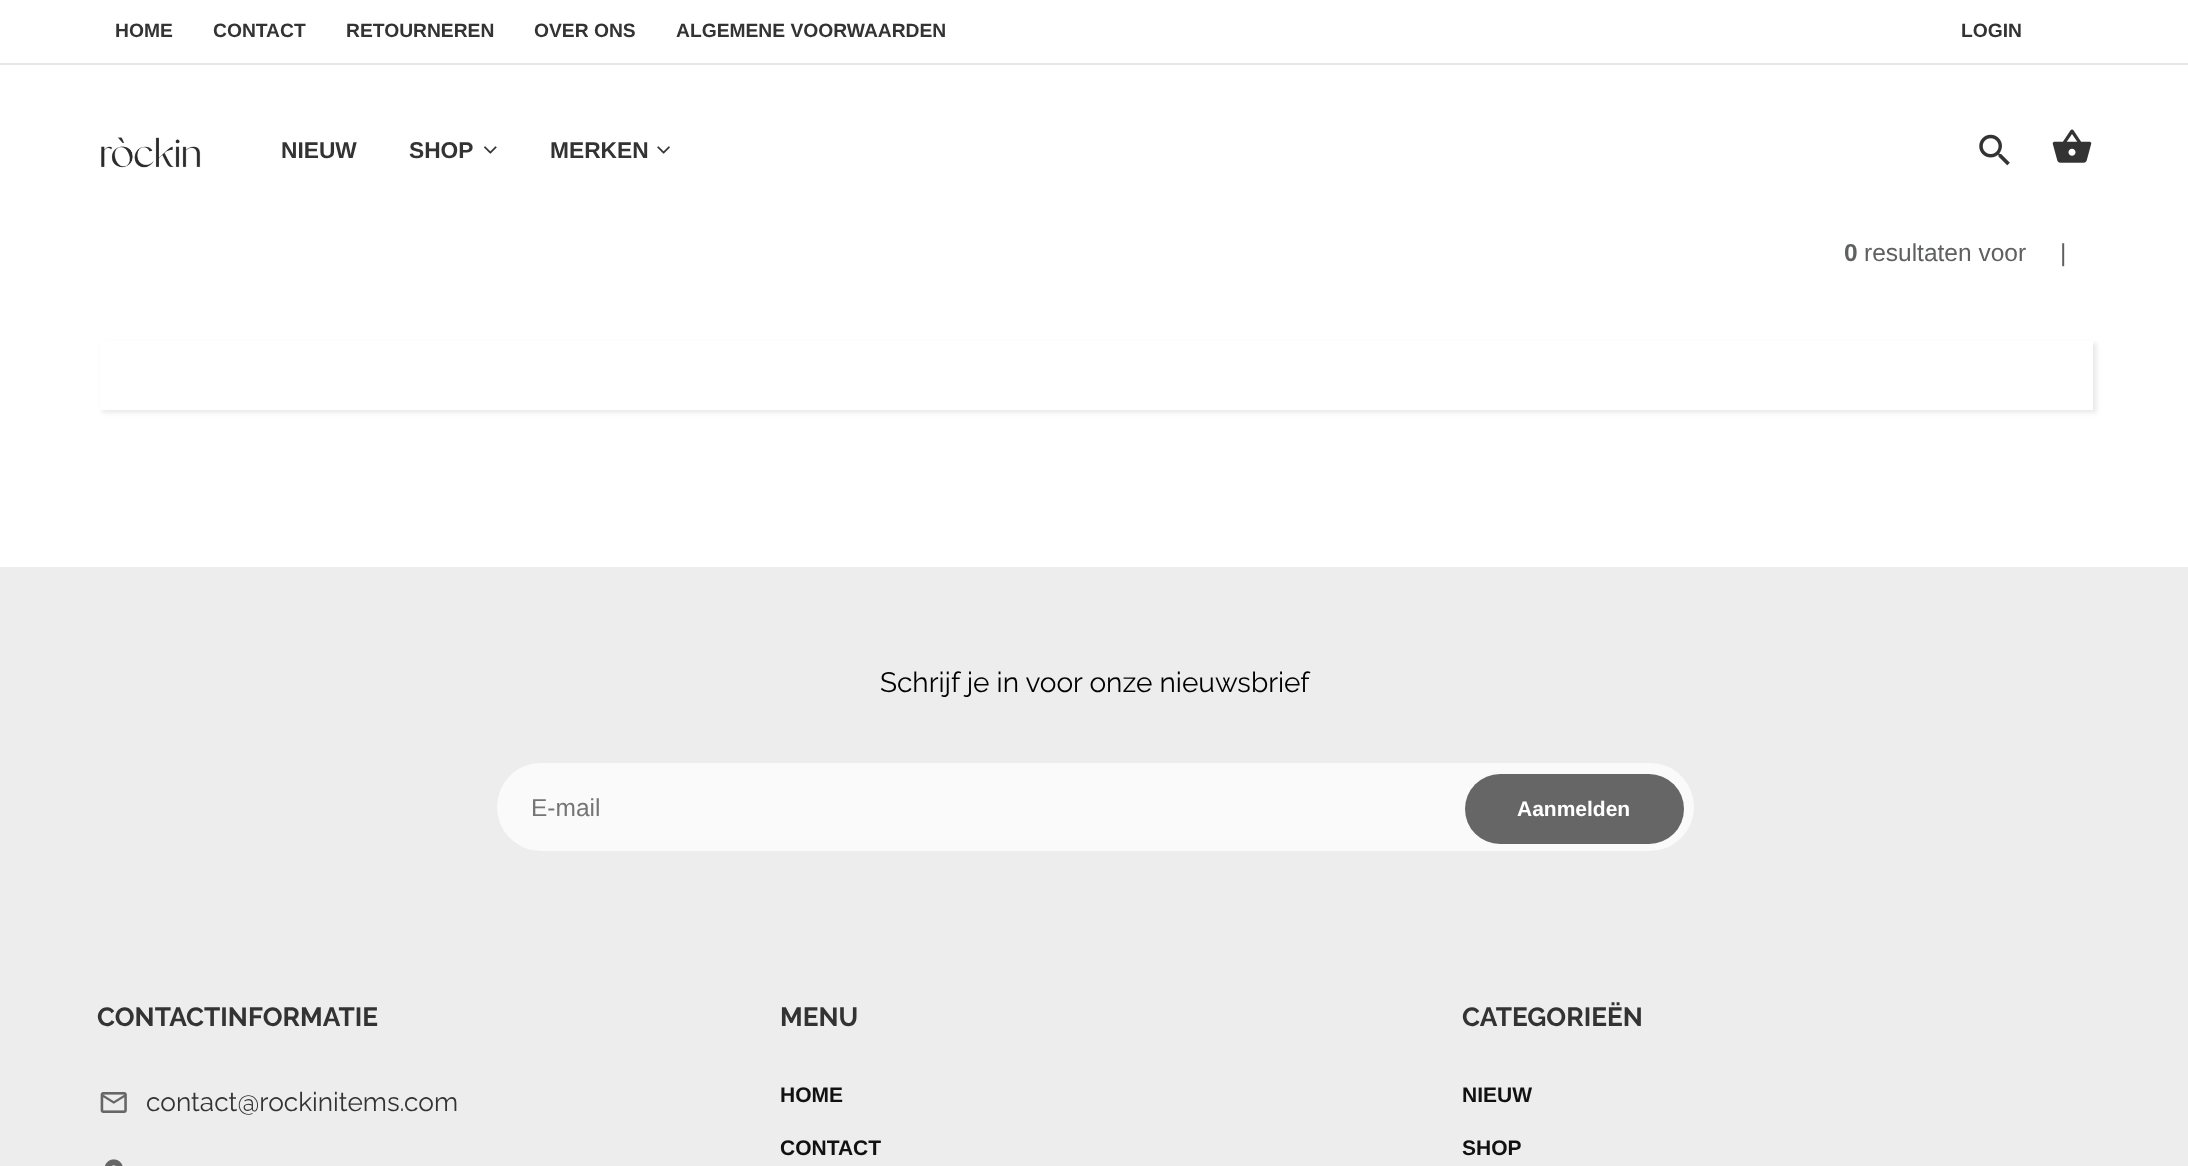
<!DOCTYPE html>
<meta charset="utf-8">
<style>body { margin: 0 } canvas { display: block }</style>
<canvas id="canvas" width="2188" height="1166"></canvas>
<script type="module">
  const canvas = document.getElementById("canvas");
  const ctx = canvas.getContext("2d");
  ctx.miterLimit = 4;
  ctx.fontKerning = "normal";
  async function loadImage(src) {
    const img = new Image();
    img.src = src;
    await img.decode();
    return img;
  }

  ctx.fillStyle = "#ffffff";
  ctx.fillRect(0, 0, 2188, 1166);
  ctx.fillStyle = "#e6e6e6";
  ctx.fillRect(0, 63, 2188, 2);
  ctx.font = "bold 19.25px Liberation Sans";
  ctx.fillStyle = "#333333";
  ctx.fillText("HOME", 115, 37);
  ctx.fillText("CONTACT", 213, 37);
  ctx.fillText("RETOURNEREN", 346, 37);
  ctx.fillText("OVER ONS", 534, 37);
  ctx.fillText("ALGEMENE VOORWAARDEN", 676, 37);
  ctx.fillText("LOGIN", 1961, 37);
  ctx.drawImage(await loadImage("img1.png"), 101, 137, 100, 31);
  ctx.font = "bold 22.75px Liberation Sans";
  ctx.fillText("NIEUW", 281, 158);
  ctx.fillText("SHOP", 409, 158);
  ctx.drawImage(await loadImage("img2.png"), 484, 146, 13, 8);
  ctx.fillText("MERKEN", 550, 158);
  ctx.drawImage(await loadImage("img3.png"), 657, 146, 13, 8);
  ctx.drawImage(await loadImage("img4.png"), 1979, 134, 31, 32);
  ctx.drawImage(await loadImage("img5.png"), 2052, 129, 40, 34);
  ctx.font = "bold 24.5px Liberation Sans";
  ctx.fillStyle = "#5e6062";
  ctx.fillText("0", 1844, 261);
  ctx.font = "24.5px Liberation Sans";
  ctx.fillText("resultaten voor", 1864, 261);
  ctx.fillText("|", 2060, 261);
  ctx.fillStyle = "rgba(215, 215, 215, 0.5)";
  ctx.filter = "blur(2px)";
  ctx.beginPath();
  ctx.rect(102, 343, 1995, 70);
  ctx.fill();
  ctx.filter = "none";
  ctx.fillStyle = "#ffffff";
  ctx.fillRect(100, 341, 1993, 69);
  ctx.fillStyle = "#ededed";
  ctx.fillRect(0, 567, 2188, 599);
  ctx.font = "28px Raleway";
  ctx.fillStyle = "#000000";
  ctx.fillText("Schrijf je in voor onze nieuwsbrief", 880, 692);
  ctx.fillStyle = "#fafafa";
  ctx.beginPath();
  ctx.roundRect(497, 763, 1197, 88, 44);
  ctx.fill();
  ctx.font = "24.5px Liberation Sans";
  ctx.fillStyle = "#757575";
  ctx.fillText("E-mail", 531, 816);
  ctx.fillStyle = "#666666";
  ctx.beginPath();
  ctx.roundRect(1465, 774, 219, 70, 35);
  ctx.fill();
  ctx.font = "bold 21px Liberation Sans";
  ctx.fillStyle = "#ffffff";
  ctx.fillText("Aanmelden", 1517, 816);
  ctx.font = "bold 26.25px Raleway";
  ctx.fillStyle = "#333333";
  ctx.fillText("CONTACTINFORMATIE", 97, 1026);
  ctx.drawImage(await loadImage("img6.png"), 100, 1092, 27, 21);
  ctx.font = "26.25px Raleway";
  ctx.fillText("contact@rockinitems.com", 146, 1111);
  ctx.drawImage(await loadImage("img7.png"), 105, 1159, 18, 7);
  ctx.font = "bold 26.25px Raleway";
  ctx.fillText("MENU", 780, 1026);
  ctx.font = "bold 21px Liberation Sans";
  ctx.fillStyle = "#111111";
  ctx.fillText("HOME", 780, 1102);
  ctx.fillText("CONTACT", 780, 1155);
  ctx.font = "bold 26.25px Raleway";
  ctx.fillStyle = "#333333";
  ctx.fillText("CATEGORIEËN", 1462, 1026);
  ctx.font = "bold 21px Liberation Sans";
  ctx.fillStyle = "#111111";
  ctx.fillText("NIEUW", 1462, 1102);
  ctx.fillText("SHOP", 1462, 1155);
</script>
